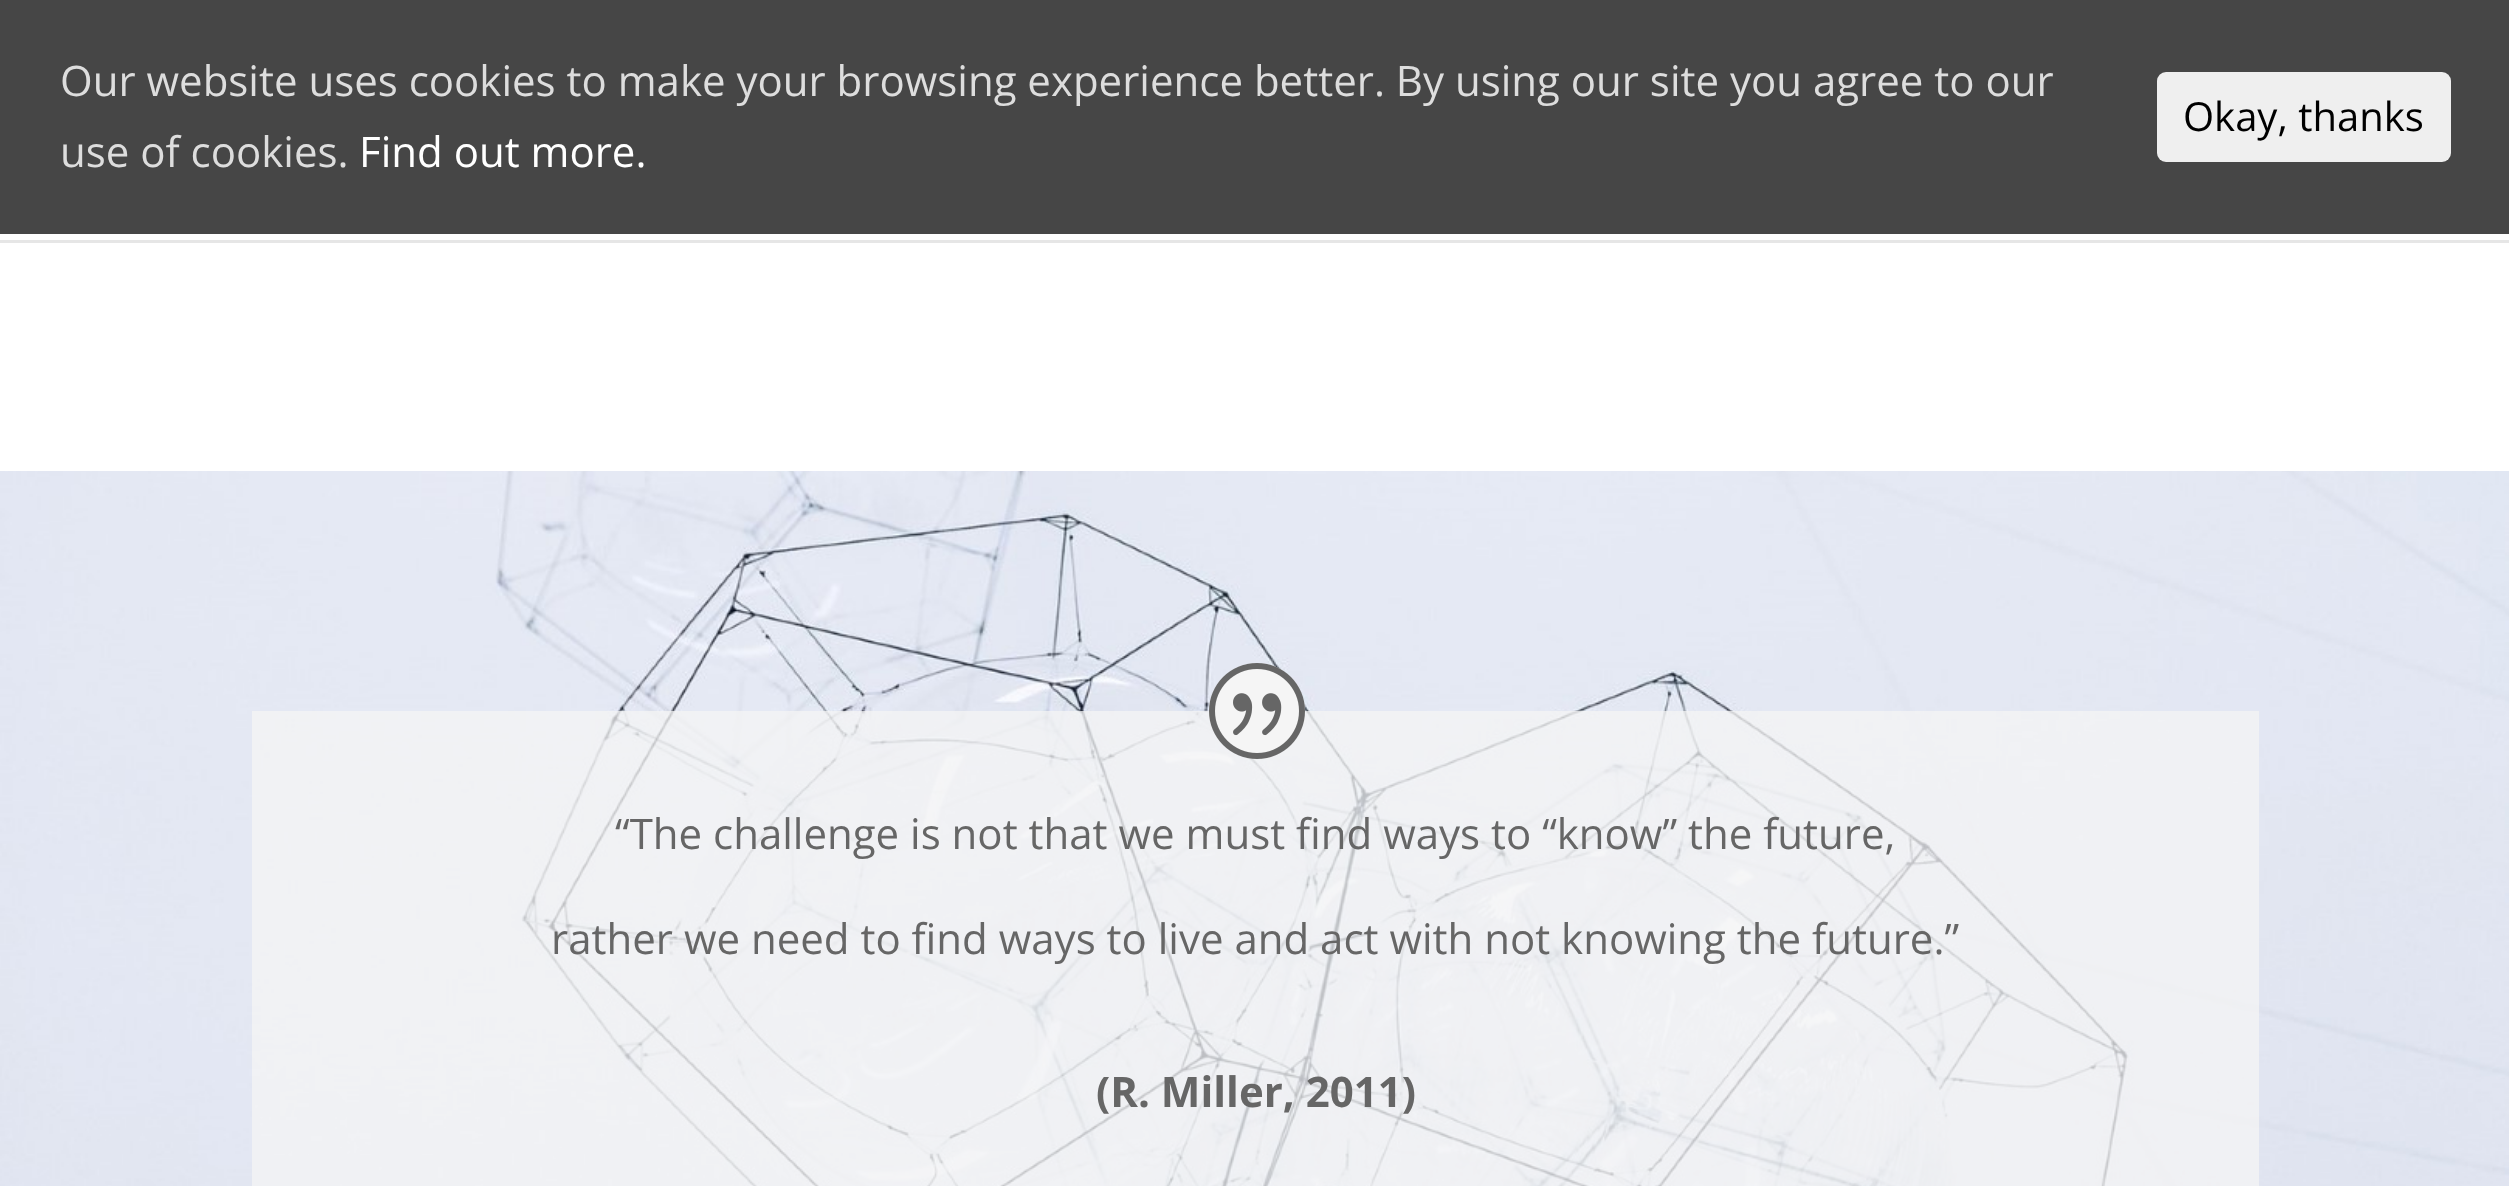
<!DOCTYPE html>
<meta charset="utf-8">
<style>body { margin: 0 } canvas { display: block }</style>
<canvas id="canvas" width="2509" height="1186"></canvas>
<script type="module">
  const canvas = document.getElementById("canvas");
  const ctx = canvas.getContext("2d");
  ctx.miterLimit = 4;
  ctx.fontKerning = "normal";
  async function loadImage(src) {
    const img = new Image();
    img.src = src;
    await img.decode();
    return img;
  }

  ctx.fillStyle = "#ffffff";
  ctx.fillRect(0, 0, 2509, 1186);
  ctx.fillStyle = "#464646";
  ctx.fillRect(0, 0, 2509, 234);
  ctx.font = "42px Open Sans";
  ctx.fillStyle = "#dddddd";
  ctx.fillText("Our website uses cookies to make your browsing experience better. By using our site you agree to our", 60, 96);
  ctx.fillText("use of cookies.", 60, 167);
  ctx.fillStyle = "#ffffff";
  ctx.fillText("Find out more.", 359, 167);
  ctx.fillStyle = "#efefef";
  ctx.beginPath();
  ctx.roundRect(2157, 72, 294, 90, 9);
  ctx.fill();
  ctx.font = "40px Open Sans";
  ctx.fillStyle = "#000000";
  ctx.fillText("Okay, thanks", 2183, 131);
  ctx.fillStyle = "#e6e6e6";
  ctx.fillRect(0, 240, 2509, 3);
  ctx.drawImage(await loadImage("img1.png"), 0, 471, 2509, 715);
  ctx.fillStyle = "rgba(245, 245, 245, 0.76)";
  ctx.fillRect(252, 711, 2007, 475);
  ctx.fillStyle = "#f5f5f5";
  ctx.beginPath();
  ctx.arc(1257, 711, 48, 0, Math.PI * 2);
  ctx.fill();
  ctx.drawImage(await loadImage("img2.png"), 1209, 663, 96, 96);
  ctx.font = "42px Open Sans";
  ctx.fillStyle = "#666666";
  ctx.fillText("“The challenge is not that we must find ways to “know” the future,", 615, 849);
  ctx.fillText("rather we need to find ways to live and act with not knowing the future.”", 551, 954);
  ctx.font = "bold 42px Open Sans";
  ctx.fillText("(R. Miller, 2011)", 1096, 1107);
</script>
